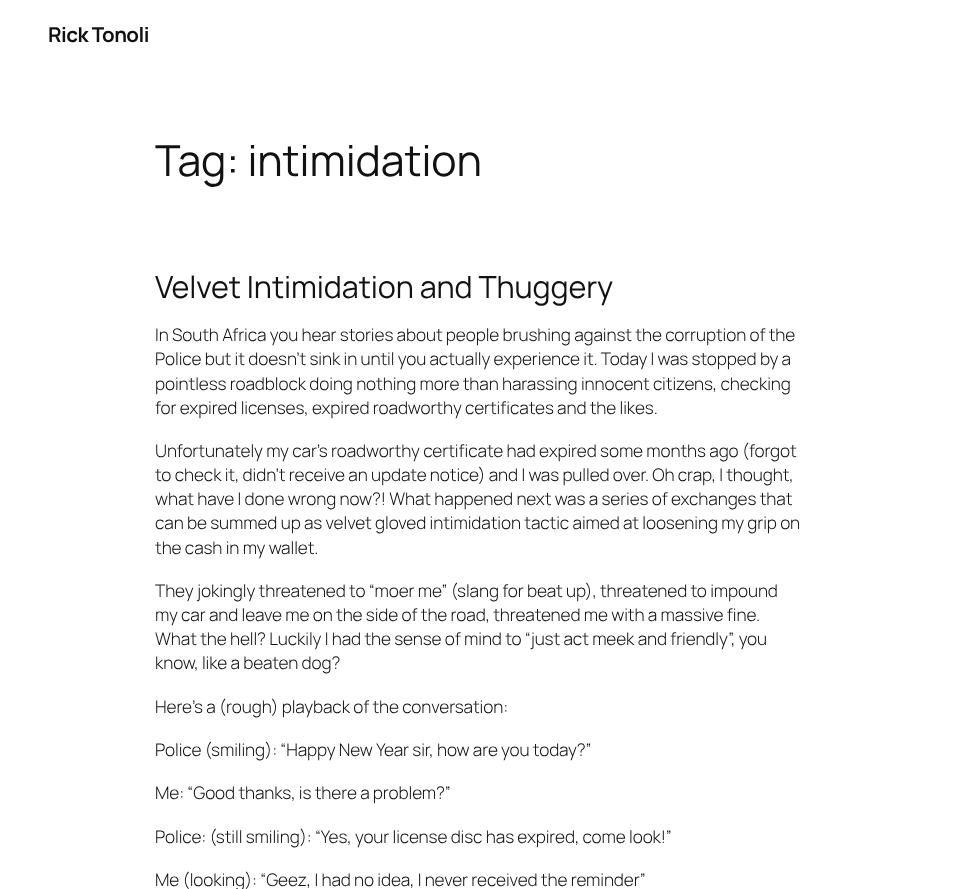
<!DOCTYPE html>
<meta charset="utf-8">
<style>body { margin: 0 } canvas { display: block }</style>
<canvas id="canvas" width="955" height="889"></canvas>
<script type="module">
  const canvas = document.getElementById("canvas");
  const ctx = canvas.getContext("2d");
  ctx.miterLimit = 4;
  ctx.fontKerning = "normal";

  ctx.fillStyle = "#ffffff";
  ctx.fillRect(0, 0, 955, 889);
  ctx.letterSpacing = "-0.5px";
  ctx.font = "bold 20.5px Manrope";
  ctx.fillStyle = "#111111";
  ctx.fillText("Rick Tonoli", 48, 42);
  ctx.letterSpacing = "-0.1px";
  ctx.font = "42.75px Manrope";
  ctx.fillText("Tag: intimidation", 155, 176);
  ctx.font = "30.5px Manrope";
  ctx.fillText("Velvet Intimidation and Thuggery", 155, 298);
  ctx.font = "300 17.25px Manrope";
  ctx.fillText("In South Africa you hear stories about people brushing against the corruption of the", 155, 341);
  ctx.fillText("Police but it doesn’t sink in until you actually experience it. Today I was stopped by a", 155, 365);
  ctx.fillText("pointless roadblock doing nothing more than harassing innocent citizens, checking", 155, 390);
  ctx.fillText("for expired licenses, expired roadworthy certificates and the likes.", 155, 414);
  ctx.fillText("Unfortunately my car’s roadworthy certificate had expired some months ago (forgot", 155, 457);
  ctx.fillText("to check it, didn’t receive an update notice) and I was pulled over. Oh crap, I thought,", 155, 481);
  ctx.fillText("what have I done wrong now?! What happened next was a series of exchanges that", 155, 505);
  ctx.fillText("can be summed up as velvet gloved intimidation tactic aimed at loosening my grip on", 155, 529);
  ctx.fillText("the cash in my wallet.", 155, 554);
  ctx.fillText("They jokingly threatened to “moer me” (slang for beat up), threatened to impound", 155, 597);
  ctx.fillText("my car and leave me on the side of the road, threatened me with a massive fine.", 155, 621);
  ctx.fillText("What the hell? Luckily I had the sense of mind to “just act meek and friendly”, you", 155, 645);
  ctx.fillText("know, like a beaten dog?", 155, 669);
  ctx.fillText("Here’s a (rough) playback of the conversation:", 155, 713);
  ctx.fillText("Police (smiling): “Happy New Year sir, how are you today?”", 155, 756);
  ctx.fillText("Me: “Good thanks, is there a problem?”", 155, 799);
  ctx.fillText("Police: (still smiling): “Yes, your license disc has expired, come look!”", 155, 843);
  ctx.fillText("Me (looking): “Geez, I had no idea, I never received the reminder”", 155, 886);
</script>
